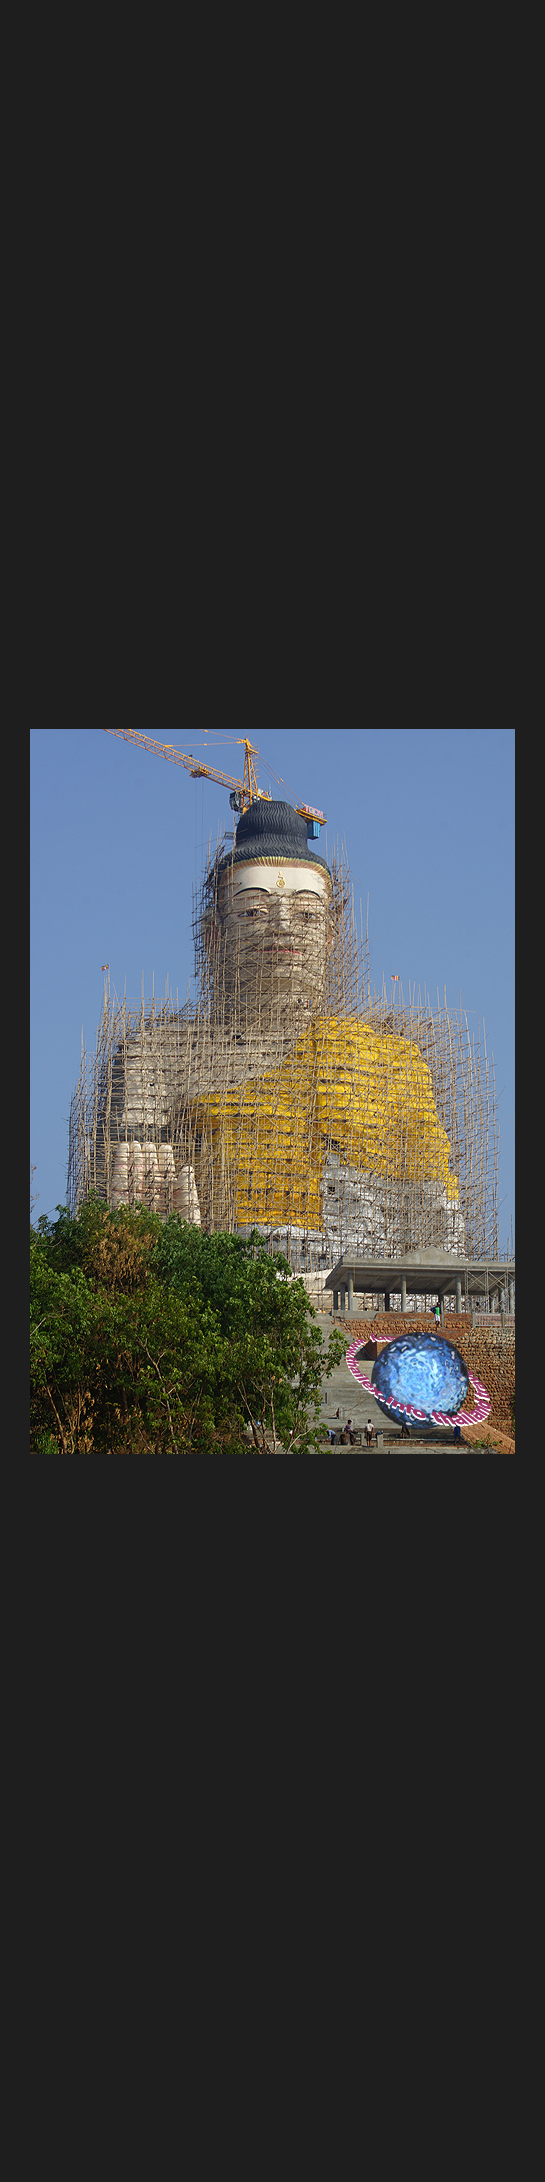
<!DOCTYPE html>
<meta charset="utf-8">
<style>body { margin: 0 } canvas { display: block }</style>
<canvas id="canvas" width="545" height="2182"></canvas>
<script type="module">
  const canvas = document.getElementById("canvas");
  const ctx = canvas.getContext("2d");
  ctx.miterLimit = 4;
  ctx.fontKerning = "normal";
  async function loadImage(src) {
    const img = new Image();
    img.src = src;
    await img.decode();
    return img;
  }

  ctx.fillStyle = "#1e1e1e";
  ctx.fillRect(0, 0, 545, 2182);
  ctx.drawImage(await loadImage("img1.png"), 30, 729, 485, 725);
</script>
